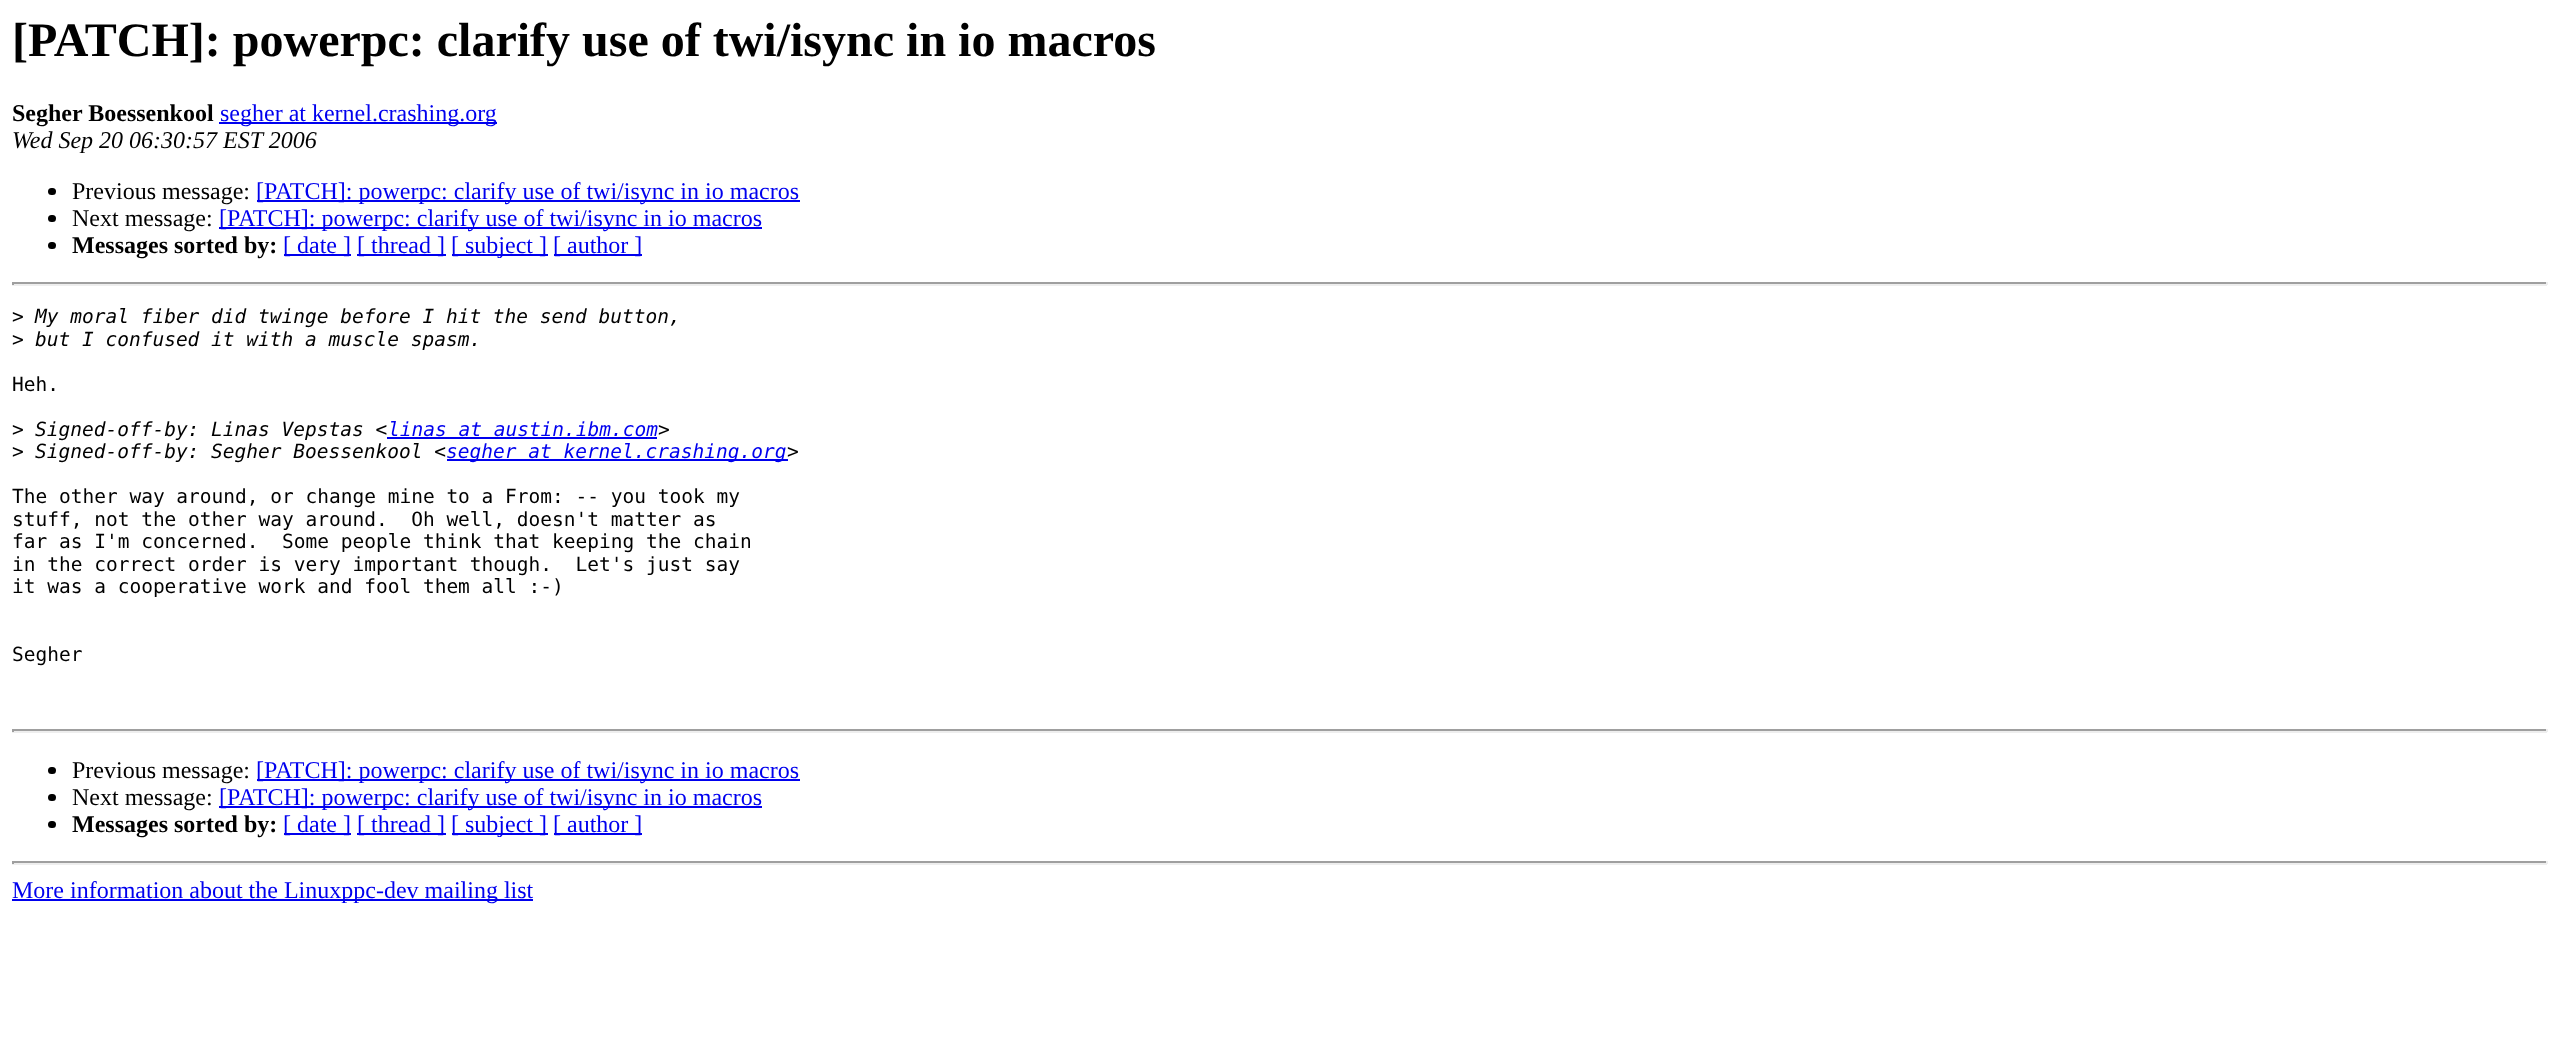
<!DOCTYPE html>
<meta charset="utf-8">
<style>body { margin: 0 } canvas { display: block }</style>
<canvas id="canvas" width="2559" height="1044"></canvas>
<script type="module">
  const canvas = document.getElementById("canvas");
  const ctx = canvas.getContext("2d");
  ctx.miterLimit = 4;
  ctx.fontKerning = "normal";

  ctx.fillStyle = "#ffffff";
  ctx.fillRect(0, 0, 2559, 1044);
  ctx.font = "bold 48px Liberation Serif";
  ctx.fillStyle = "#000000";
  ctx.fillText("[PATCH]: powerpc: clarify use of twi/isync in io macros", 12, 56);
  ctx.font = "bold 24px Liberation Serif";
  ctx.fillText("Segher Boessenkool", 12, 121);
  ctx.fillStyle = "#0000ee";
  ctx.fillRect(219, 122, 278, 2);
  ctx.font = "24px Liberation Serif";
  ctx.fillText("segher at kernel.crashing.org", 220, 121);
  ctx.font = "italic 24px Liberation Serif";
  ctx.fillStyle = "#000000";
  ctx.fillText("Wed Sep 20 06:30:57 EST 2006", 12, 148);
  ctx.beginPath();
  ctx.roundRect(48, 188, 8, 7, 3.5);
  ctx.fill();
  ctx.font = "24px Liberation Serif";
  ctx.fillText("Previous message:", 72, 199);
  ctx.fillStyle = "#0000ee";
  ctx.fillRect(257, 200, 543, 2);
  ctx.fillText("[PATCH]: powerpc: clarify use of twi/isync in io macros", 256, 199);
  ctx.fillStyle = "#000000";
  ctx.beginPath();
  ctx.roundRect(48, 215, 8, 7, 3.5);
  ctx.fill();
  ctx.fillText("Next message:", 72, 226);
  ctx.fillStyle = "#0000ee";
  ctx.fillRect(219, 227, 543, 2);
  ctx.fillText("[PATCH]: powerpc: clarify use of twi/isync in io macros", 219, 226);
  ctx.fillStyle = "#000000";
  ctx.beginPath();
  ctx.roundRect(48, 242, 8, 7, 3.5);
  ctx.fill();
  ctx.font = "bold 24px Liberation Serif";
  ctx.fillText("Messages sorted by:", 72, 253);
  ctx.fillStyle = "#0000ee";
  ctx.fillRect(284, 254, 67, 2);
  ctx.font = "24px Liberation Serif";
  ctx.fillText("[ date ]", 283, 253);
  ctx.fillRect(357, 254, 89, 2);
  ctx.fillText("[ thread ]", 357, 253);
  ctx.fillRect(452, 254, 96, 2);
  ctx.fillText("[ subject ]", 451, 253);
  ctx.fillRect(554, 254, 88, 2);
  ctx.fillText("[ author ]", 553, 253);
  ctx.fillStyle = "#9f9f9f";
  ctx.fillRect(12, 282, 2535, 2);
  ctx.fillStyle = "#eeeeee";
  ctx.fillRect(2546, 282, 2, 3);
  ctx.fillRect(12, 284, 2535, 2);
  ctx.fillStyle = "#9f9f9f";
  ctx.fillRect(12, 282, 2, 3);
  ctx.font = "19.5px DejaVu Sans Mono";
  ctx.fillStyle = "#000000";
  ctx.fillText(">", 12, 323);
  ctx.font = "italic 19.5px DejaVu Sans Mono";
  ctx.fillText("My moral fiber did twinge before I hit the send button,", 35, 323);
  ctx.font = "19.5px DejaVu Sans Mono";
  ctx.fillText(">", 12, 346);
  ctx.font = "italic 19.5px DejaVu Sans Mono";
  ctx.fillText("but I confused it with a muscle spasm.", 35, 346);
  ctx.font = "19.5px DejaVu Sans Mono";
  ctx.fillText("Heh.", 12, 391);
  ctx.fillText(">", 12, 436);
  ctx.font = "italic 19.5px DejaVu Sans Mono";
  ctx.fillText("Signed-off-by: Linas Vepstas <", 35, 436);
  ctx.fillStyle = "#0000ee";
  ctx.fillRect(387, 437, 270, 2);
  ctx.fillText("linas at austin.ibm.com", 388, 436);
  ctx.fillStyle = "#000000";
  ctx.fillText(">", 658, 436);
  ctx.font = "19.5px DejaVu Sans Mono";
  ctx.fillText(">", 12, 458);
  ctx.font = "italic 19.5px DejaVu Sans Mono";
  ctx.fillText("Signed-off-by: Segher Boessenkool <", 35, 458);
  ctx.fillStyle = "#0000ee";
  ctx.fillRect(447, 459, 341, 2);
  ctx.fillText("segher at kernel.crashing.org", 446, 458);
  ctx.fillStyle = "#000000";
  ctx.fillText(">", 787, 458);
  ctx.font = "19.5px DejaVu Sans Mono";
  ctx.fillText("The other way around, or change mine to a From: -- you took my", 12, 503);
  ctx.fillText("stuff, not the other way around.  Oh well, doesn't matter as", 12, 526);
  ctx.fillText("far as I'm concerned.  Some people think that keeping the chain", 12, 548);
  ctx.fillText("in the correct order is very important though.  Let's just say", 12, 571);
  ctx.fillText("it was a cooperative work and fool them all :-)", 12, 593);
  ctx.fillText("Segher", 12, 661);
  ctx.fillStyle = "#9f9f9f";
  ctx.fillRect(12, 729, 2535, 2);
  ctx.fillStyle = "#eeeeee";
  ctx.fillRect(2546, 729, 2, 3);
  ctx.fillRect(12, 731, 2535, 2);
  ctx.fillStyle = "#9f9f9f";
  ctx.fillRect(12, 729, 2, 3);
  ctx.fillStyle = "#000000";
  ctx.beginPath();
  ctx.roundRect(48, 767, 8, 7, 3.5);
  ctx.fill();
  ctx.font = "24px Liberation Serif";
  ctx.fillText("Previous message:", 72, 778);
  ctx.fillStyle = "#0000ee";
  ctx.fillRect(257, 779, 543, 2);
  ctx.fillText("[PATCH]: powerpc: clarify use of twi/isync in io macros", 256, 778);
  ctx.fillStyle = "#000000";
  ctx.beginPath();
  ctx.roundRect(48, 794, 8, 7, 3.5);
  ctx.fill();
  ctx.fillText("Next message:", 72, 805);
  ctx.fillStyle = "#0000ee";
  ctx.fillRect(219, 806, 543, 2);
  ctx.fillText("[PATCH]: powerpc: clarify use of twi/isync in io macros", 219, 805);
  ctx.fillStyle = "#000000";
  ctx.beginPath();
  ctx.roundRect(48, 821, 8, 7, 3.5);
  ctx.fill();
  ctx.font = "bold 24px Liberation Serif";
  ctx.fillText("Messages sorted by:", 72, 832);
  ctx.fillStyle = "#0000ee";
  ctx.fillRect(284, 833, 67, 2);
  ctx.font = "24px Liberation Serif";
  ctx.fillText("[ date ]", 283, 832);
  ctx.fillRect(357, 833, 89, 2);
  ctx.fillText("[ thread ]", 357, 832);
  ctx.fillRect(452, 833, 96, 2);
  ctx.fillText("[ subject ]", 451, 832);
  ctx.fillRect(554, 833, 88, 2);
  ctx.fillText("[ author ]", 553, 832);
  ctx.fillStyle = "#9f9f9f";
  ctx.fillRect(12, 861, 2535, 2);
  ctx.fillStyle = "#eeeeee";
  ctx.fillRect(2546, 861, 2, 3);
  ctx.fillRect(12, 863, 2535, 2);
  ctx.fillStyle = "#9f9f9f";
  ctx.fillRect(12, 861, 2, 3);
  ctx.fillStyle = "#0000ee";
  ctx.fillRect(12, 899, 521, 2);
  ctx.fillText("More information about the Linuxppc-dev mailing list", 12, 898);
</script>
